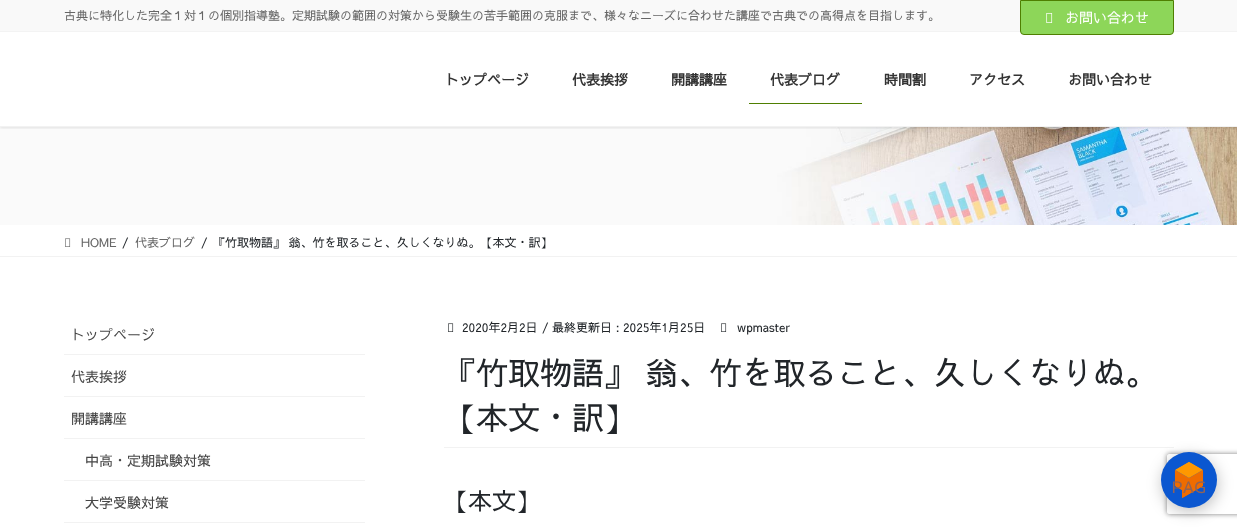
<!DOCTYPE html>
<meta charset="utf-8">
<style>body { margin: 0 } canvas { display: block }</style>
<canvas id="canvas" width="1237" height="528"></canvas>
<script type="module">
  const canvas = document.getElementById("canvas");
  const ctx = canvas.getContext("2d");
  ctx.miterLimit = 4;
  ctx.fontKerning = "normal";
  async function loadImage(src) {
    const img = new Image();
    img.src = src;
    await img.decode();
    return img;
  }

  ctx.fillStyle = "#ffffff";
  ctx.fillRect(0, 0, 1237, 528);
  ctx.drawImage(await loadImage("img2.png"), 0, 127, 1237, 98);
  ctx.save();
  ctx.beginPath();
  ctx.rect(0, 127, 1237, 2);
  ctx.clip();
  ctx.fillStyle = "rgba(0, 0, 0, 0.1)";
  ctx.filter = "blur(1.5px)";
  ctx.beginPath();
  ctx.rect(0, -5, 1237, 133);
  ctx.fill();
  ctx.filter = "none";
  ctx.restore();
  ctx.fillStyle = "#f2f2f2";
  ctx.fillRect(0, 126, 1237, 1);
  ctx.fillStyle = "#f9f9f9";
  ctx.fillRect(0, 0, 1237, 31);
  ctx.fillStyle = "#f3f3f3";
  ctx.fillRect(0, 31, 1237, 1);
  ctx.font = "12px Sawarabi Gothic";
  ctx.fillStyle = "#666666";
  ctx.fillText("古典に特化した完全１対１の個別指導塾。定期試験の範囲の対策から受験生の苦手範囲の克服まで、様々なニーズに合わせた講座で古典での高得点を目指します。", 64, 20);
  ctx.fillStyle = "#8dd659";
  ctx.beginPath();
  ctx.roundRect(1020.5, 0.5, 153, 34, [0, 0, 3.5, 3.5]);
  ctx.fill();
  ctx.strokeStyle = "#4f7f01";
  ctx.stroke();
  ctx.drawImage(await loadImage("img1.png"), 1046, 13, 7, 10);
  ctx.font = "14px Sawarabi Gothic";
  ctx.fillStyle = "#ffffff";
  ctx.fillText("お問い合わせ", 1065, 23);
  ctx.font = "bold 14px Sawarabi Gothic";
  ctx.fillStyle = "#333333";
  ctx.fillText("トップページ", 445, 85);
  ctx.fillText("代表挨拶", 572, 85);
  ctx.fillText("開講講座", 671, 85);
  ctx.fillText("代表ブログ", 770, 85);
  ctx.fillStyle = "#4f7f01";
  ctx.fillRect(749, 103, 113, 1);
  ctx.fillStyle = "#333333";
  ctx.fillText("時間割", 884, 85);
  ctx.fillText("アクセス", 969, 85);
  ctx.fillText("お問い合わせ", 1068, 85);
  ctx.fillStyle = "#f2f2f2";
  ctx.fillRect(0, 256, 1237, 1);
  ctx.drawImage(await loadImage("img3.png"), 65, 238, 6, 9);
  ctx.font = "12px Sawarabi Gothic";
  ctx.fillStyle = "#666666";
  ctx.fillText("HOME", 81, 247);
  ctx.fillStyle = "#212529";
  ctx.fillText("/", 122, 247);
  ctx.fillStyle = "#666666";
  ctx.fillText("代表ブログ", 135, 247);
  ctx.fillStyle = "#212529";
  ctx.fillText("/", 201, 247);
  ctx.fillText("『竹取物語』 翁、竹を取ること、久しくなりぬ。【本文・訳】", 213, 247);
  ctx.fillStyle = "#f2f2f2";
  ctx.fillRect(64, 354, 301, 1);
  ctx.font = "14px Sawarabi Gothic";
  ctx.fillStyle = "#464646";
  ctx.fillText("トップページ", 71, 340);
  ctx.fillStyle = "#f2f2f2";
  ctx.fillRect(64, 396, 301, 1);
  ctx.fillStyle = "#464646";
  ctx.fillText("代表挨拶", 71, 382);
  ctx.fillStyle = "#f2f2f2";
  ctx.fillRect(64, 438, 301, 1);
  ctx.fillStyle = "#464646";
  ctx.fillText("開講講座", 71, 424);
  ctx.fillStyle = "#f2f2f2";
  ctx.fillRect(64, 480, 301, 1);
  ctx.fillStyle = "#464646";
  ctx.fillText("中高・定期試験対策", 85, 466);
  ctx.fillStyle = "#f2f2f2";
  ctx.fillRect(64, 522, 301, 1);
  ctx.fillStyle = "#464646";
  ctx.fillText("大学受験対策", 85, 508);
  ctx.fillStyle = "#f2f2f2";
  ctx.fillRect(444, 447, 730, 1);
  ctx.drawImage(await loadImage("img4.png"), 448, 323, 6, 9);
  ctx.font = "12px Sawarabi Gothic";
  ctx.fillStyle = "#212529";
  ctx.fillText("2020年2月2日", 462, 332);
  ctx.fillText("/ 最終更新日 : 2025年1月25日", 542, 332);
  ctx.drawImage(await loadImage("img4.png"), 721, 323, 6, 9);
  ctx.fillText("wpmaster", 737, 332);
  ctx.font = "32px Sawarabi Gothic";
  ctx.fillText("『竹取物語』 翁、竹を取ること、久しくなりぬ。", 444, 385);
  ctx.fillText("【本文・訳】", 444, 430);
  ctx.font = "24px Sawarabi Gothic";
  ctx.fillText("【本文】", 444, 510);
  ctx.fillStyle = "rgba(0, 0, 0, 0.24)";
  ctx.filter = "blur(7.5px)";
  ctx.beginPath();
  ctx.roundRect(1162, 456, 56, 56, 28);
  ctx.fill();
  ctx.filter = "none";
  ctx.save();
  ctx.beginPath();
  ctx.moveTo(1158, 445);
  ctx.lineTo(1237, 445);
  ctx.lineTo(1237, 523);
  ctx.lineTo(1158, 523);
  ctx.closePath();
  ctx.moveTo(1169, 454);
  ctx.lineTo(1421, 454);
  ctx.bezierCurveTo(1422, 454, 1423, 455, 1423, 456);
  ctx.lineTo(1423, 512);
  ctx.bezierCurveTo(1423, 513, 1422, 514, 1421, 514);
  ctx.lineTo(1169, 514);
  ctx.bezierCurveTo(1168, 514, 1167, 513, 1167, 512);
  ctx.lineTo(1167, 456);
  ctx.bezierCurveTo(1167, 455, 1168, 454, 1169, 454);
  ctx.closePath();
  ctx.clip("evenodd");
  ctx.fillStyle = "#808080";
  ctx.filter = "blur(2.5px)";
  ctx.beginPath();
  ctx.roundRect(1167, 454, 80, 60, 2);
  ctx.fill();
  ctx.filter = "none";
  ctx.restore();
  ctx.fillStyle = "#0b57d0";
  ctx.beginPath();
  ctx.arc(1189, 480, 28, 0, Math.PI * 2);
  ctx.fill();
  ctx.drawImage(await loadImage("img5.png"), 1174, 462, 30, 36);
  ctx.font = "16px Sawarabi Gothic";
  ctx.fillStyle = "#916356";
  ctx.fillText("PAG", 1172, 493);
</script>
